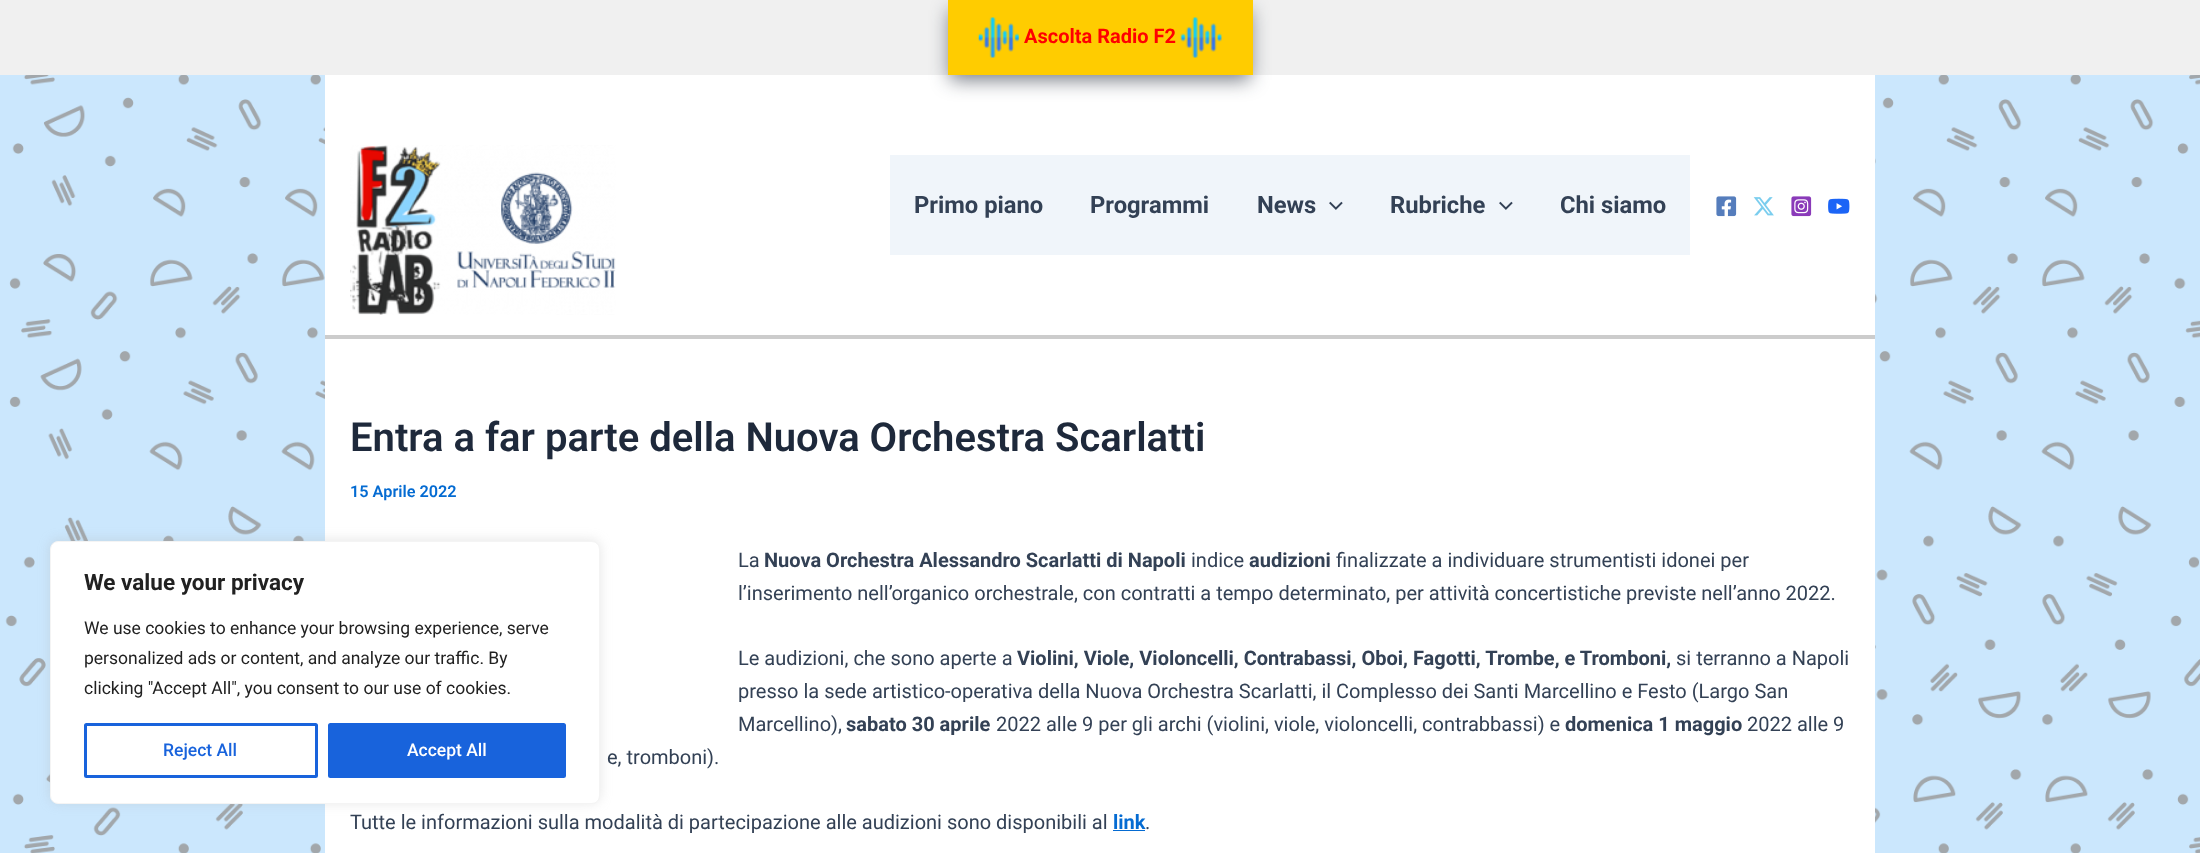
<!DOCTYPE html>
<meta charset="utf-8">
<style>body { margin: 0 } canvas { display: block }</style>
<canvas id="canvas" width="2200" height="853"></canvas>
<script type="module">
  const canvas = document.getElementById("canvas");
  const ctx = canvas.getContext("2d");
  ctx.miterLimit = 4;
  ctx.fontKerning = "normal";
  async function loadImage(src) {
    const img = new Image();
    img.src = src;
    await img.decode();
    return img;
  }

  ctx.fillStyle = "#ffffff";
  ctx.fillRect(0, 0, 2200, 853);
  ctx.drawImage(await loadImage("img1.png"), 0, 75, 2200, 778);
  ctx.fillStyle = "#f0f0f0";
  ctx.fillRect(0, 0, 2200, 75);
  ctx.fillStyle = "#ffffff";
  ctx.fillRect(325, 75, 1550, 260);
  ctx.fillStyle = "rgba(16, 24, 40, 0.57)";
  ctx.filter = "blur(9.5px)";
  ctx.beginPath();
  ctx.rect(950, 10, 300, 70);
  ctx.fill();
  ctx.filter = "none";
  ctx.fillStyle = "#ffcc00";
  ctx.fillRect(948, 0, 305, 75);
  ctx.drawImage(await loadImage("img2.png"), 978, 17, 41, 41);
  ctx.font = "bold 20px Roboto";
  ctx.fillStyle = "#ff0000";
  ctx.fillText("Ascolta Radio F2", 1024, 43);
  ctx.drawImage(await loadImage("img3.png"), 1180, 17, 42, 41);
  ctx.fillStyle = "#ffffff";
  ctx.fillRect(325, 339, 1550, 514);
  ctx.fillStyle = "rgba(172, 171, 171, 0.3)";
  ctx.filter = "blur(6px)";
  ctx.beginPath();
  ctx.roundRect(50, 540, 550, 263, 8);
  ctx.fill();
  ctx.filter = "none";
  ctx.fillStyle = "#ffffff";
  ctx.beginPath();
  ctx.roundRect(50.5, 541.5, 549, 262, 7.5);
  ctx.fill();
  ctx.strokeStyle = "#f4f4f4";
  ctx.stroke();
  ctx.font = "bold 22.5px Roboto";
  ctx.fillStyle = "#212121";
  ctx.fillText("We value your privacy", 84, 590);
  ctx.font = "17.5px Roboto";
  ctx.fillText("We use cookies to enhance your browsing experience, serve", 84, 634);
  ctx.fillText("personalized ads or content, and analyze our traffic. By", 84, 664);
  ctx.fillText("clicking \"Accept All\", you consent to our use of cookies.", 84, 694);
  ctx.beginPath();
  ctx.roundRect(85.5, 724.5, 231, 52, 1);
  ctx.strokeStyle = "#1863dc";
  ctx.lineWidth = 3;
  ctx.stroke();
  ctx.font = "500 17.5px Roboto";
  ctx.fillStyle = "#1863dc";
  ctx.fillText("Reject All", 163, 756);
  ctx.beginPath();
  ctx.roundRect(329.5, 724.5, 235, 52, 1);
  ctx.fill();
  ctx.stroke();
  ctx.fillStyle = "#ffffff";
  ctx.fillText("Accept All", 407, 756);
  ctx.fillStyle = "#cccccc";
  ctx.fillRect(325, 335, 1550, 4);
  ctx.drawImage(await loadImage("img4.png"), 350, 145, 266, 170);
  ctx.fillStyle = "#f0f5fa";
  ctx.fillRect(890, 155, 800, 100);
  ctx.font = "bold 23.75px Roboto";
  ctx.fillStyle = "#334155";
  ctx.fillText("Primo piano", 914, 213);
  ctx.fillText("Programmi", 1090, 213);
  ctx.fillText("News", 1257, 213);
  ctx.drawImage(await loadImage("img5.png"), 1329, 201, 14, 9);
  ctx.fillText("Rubriche", 1390, 213);
  ctx.drawImage(await loadImage("img5.png"), 1499, 201, 14, 9);
  ctx.fillText("Chi siamo", 1560, 213);
  ctx.drawImage(await loadImage("img6.png"), 1716, 196, 21, 21);
  ctx.drawImage(await loadImage("img7.png"), 1753, 197, 21, 19);
  ctx.drawImage(await loadImage("img8.png"), 1791, 196, 21, 21);
  ctx.drawImage(await loadImage("img9.png"), 1828, 198, 22, 16);
  ctx.font = "600 40px Roboto";
  ctx.fillStyle = "#1e293b";
  ctx.fillText("Entra a far parte della Nuova Orchestra Scarlatti", 350, 451);
  ctx.font = "600 16.25px Roboto";
  ctx.fillStyle = "#046bd2";
  ctx.fillText("15 Aprile 2022", 350, 497);
  ctx.font = "20px Roboto";
  ctx.fillStyle = "#334155";
  ctx.fillText("La", 738, 567);
  ctx.font = "bold 20px Roboto";
  ctx.fillText("Nuova Orchestra Alessandro Scarlatti di Napoli", 764, 567);
  ctx.font = "20px Roboto";
  ctx.fillText("indice", 1191, 567);
  ctx.font = "bold 20px Roboto";
  ctx.fillText("audizioni", 1249, 567);
  ctx.font = "20px Roboto";
  ctx.fillText("finalizzate a individuare strumentisti idonei per", 1336, 567);
  ctx.fillText("l’inserimento nell’organico orchestrale, con contratti a tempo determinato, per attività concertistiche previste nell’anno 2022.", 738, 600);
  ctx.fillText("Le audizioni, che sono aperte a", 738, 665);
  ctx.font = "bold 20px Roboto";
  ctx.fillText("Violini, Viole, Violoncelli, Contrabassi, Oboi, Fagotti, Trombe, e Tromboni,", 1017, 665);
  ctx.font = "20px Roboto";
  ctx.fillText("si terranno a Napoli", 1676, 665);
  ctx.fillText("presso la sede artistico-operativa della Nuova Orchestra Scarlatti, il Complesso dei Santi Marcellino e Festo (Largo San", 738, 698);
  ctx.fillText("Marcellino),", 738, 731);
  ctx.font = "bold 20px Roboto";
  ctx.fillText("sabato 30 aprile", 846, 731);
  ctx.font = "20px Roboto";
  ctx.fillText("2022 alle 9 per gli archi (violini, viole, violoncelli, contrabbassi) e", 996, 731);
  ctx.font = "bold 20px Roboto";
  ctx.fillText("domenica 1 maggio", 1565, 731);
  ctx.font = "20px Roboto";
  ctx.fillText("2022 alle 9", 1747, 731);
  ctx.fillText("e, tromboni).", 607, 764);
  ctx.fillText("Tutte le informazioni sulla modalità di partecipazione alle audizioni sono disponibili al", 350, 829);
  ctx.font = "bold 20px Roboto";
  ctx.fillStyle = "#046bd2";
  ctx.fillText("link", 1113, 829);
  ctx.fillRect(1113, 830, 32, 1);
  ctx.font = "20px Roboto";
  ctx.fillStyle = "#334155";
  ctx.fillText(".", 1145, 829);
</script>
